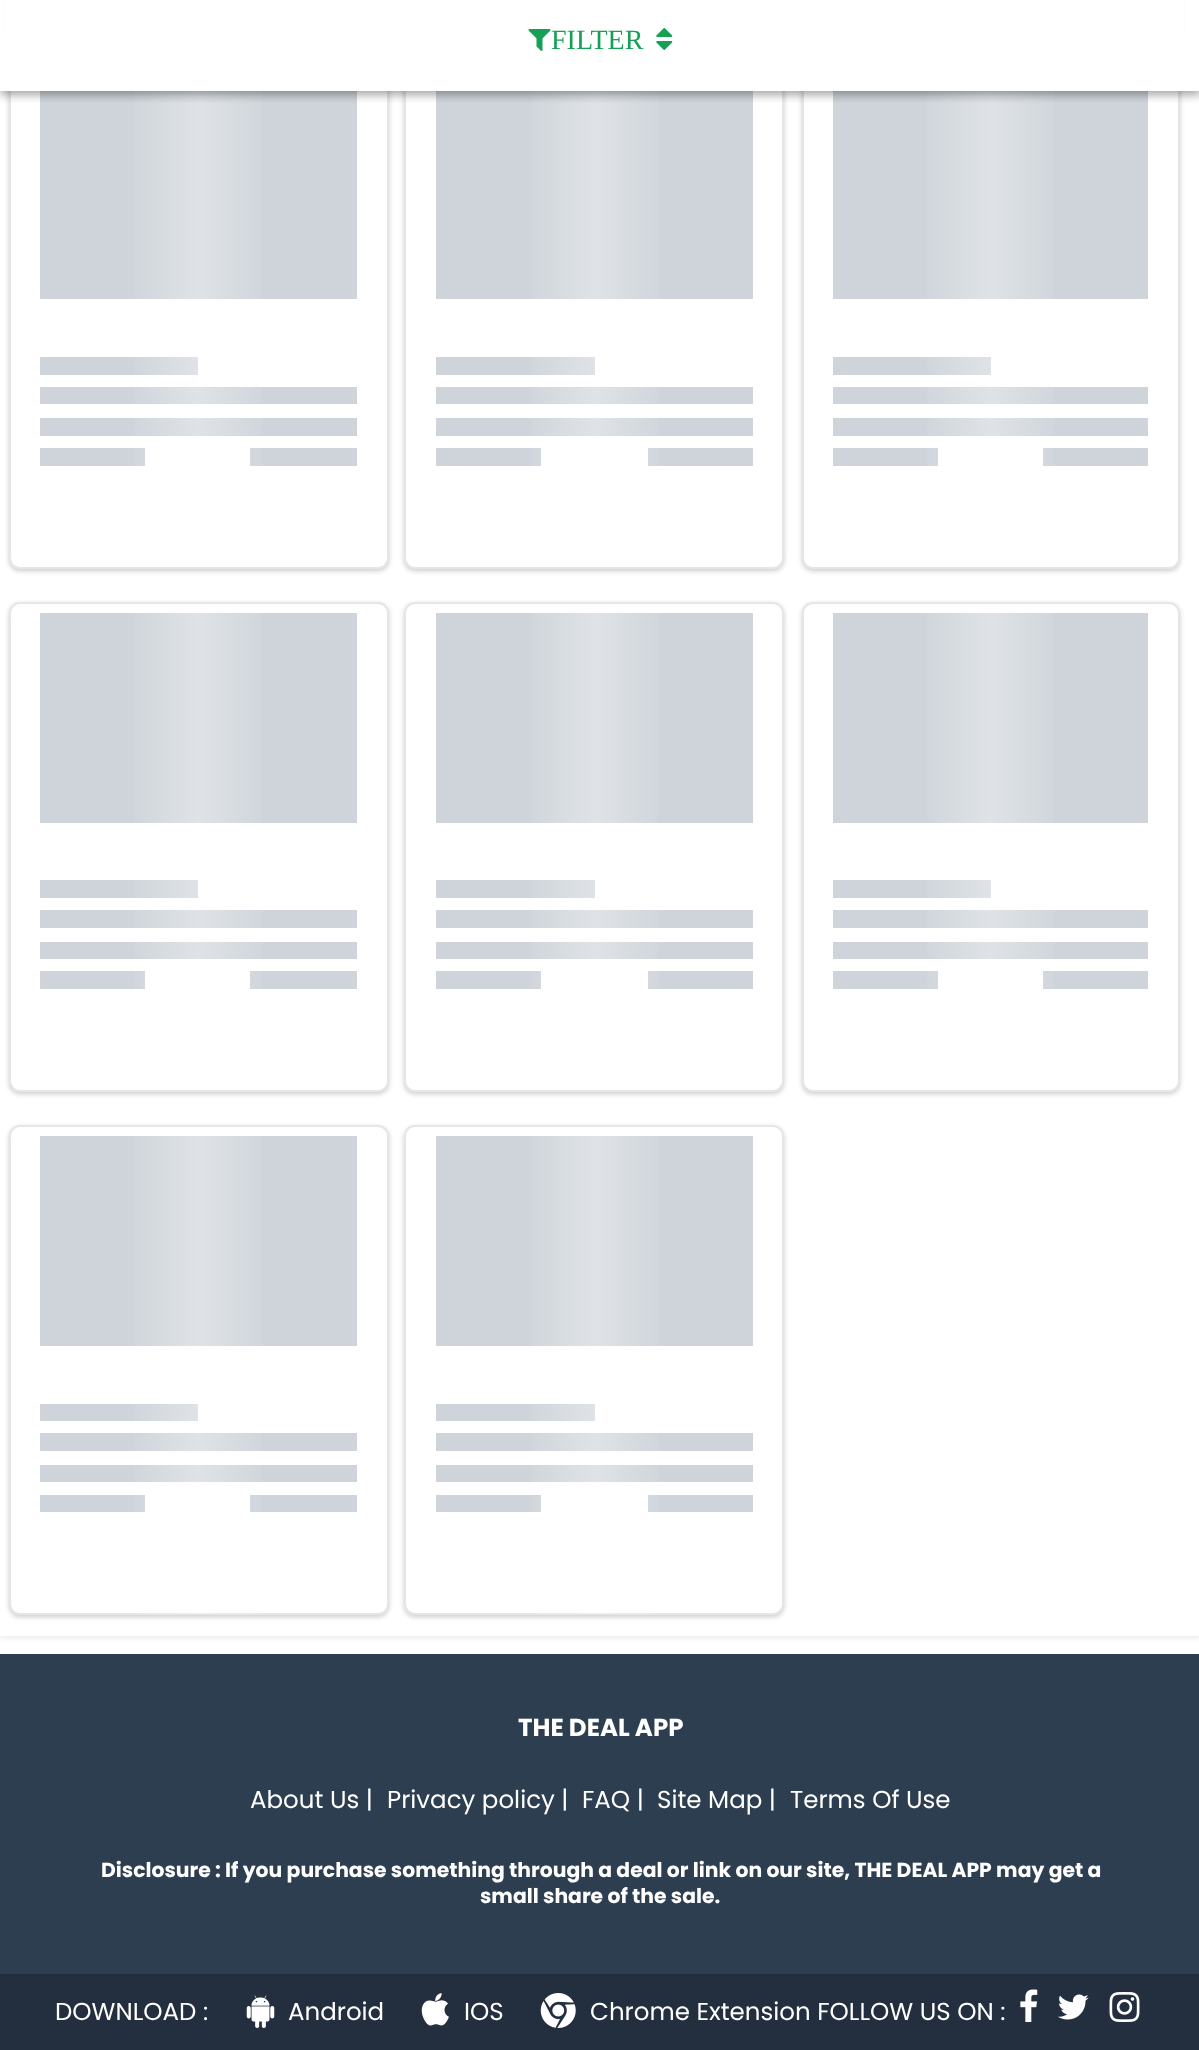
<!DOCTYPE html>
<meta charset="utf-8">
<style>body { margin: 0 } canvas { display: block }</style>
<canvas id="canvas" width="1199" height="2050"></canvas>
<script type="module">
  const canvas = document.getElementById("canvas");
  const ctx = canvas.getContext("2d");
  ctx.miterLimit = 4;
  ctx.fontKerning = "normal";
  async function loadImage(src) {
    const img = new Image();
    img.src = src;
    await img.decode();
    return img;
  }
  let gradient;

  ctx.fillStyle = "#ffffff";
  ctx.fillRect(0, 0, 1199, 2050);
  ctx.save();
  ctx.beginPath();
  ctx.rect(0, 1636, 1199, 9);
  ctx.clip();
  ctx.fillStyle = "#dddddd";
  ctx.filter = "blur(4.5px)";
  ctx.beginPath();
  ctx.rect(0, -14, 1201, 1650);
  ctx.fill();
  ctx.filter = "none";
  ctx.restore();
  ctx.fillStyle = "rgba(0, 0, 0, 0.2)";
  ctx.filter = "blur(2.5px)";
  ctx.beginPath();
  ctx.roundRect(9, -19, 380, 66, 11);
  ctx.fill();
  ctx.filter = "none";
  ctx.fillStyle = "#ffffff";
  ctx.beginPath();
  ctx.roundRect(10, -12, 378, 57, 10);
  ctx.fill();
  ctx.strokeStyle = "#e6e6e6";
  ctx.lineWidth = 2;
  ctx.stroke();
  ctx.fillStyle = "rgba(0, 0, 0, 0.2)";
  ctx.filter = "blur(2.5px)";
  ctx.beginPath();
  ctx.roundRect(404, -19, 380, 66, 11);
  ctx.fill();
  ctx.filter = "none";
  ctx.fillStyle = "#ffffff";
  ctx.beginPath();
  ctx.roundRect(405, -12, 378, 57, 10);
  ctx.fill();
  ctx.stroke();
  ctx.fillStyle = "rgba(0, 0, 0, 0.2)";
  ctx.filter = "blur(2.5px)";
  ctx.beginPath();
  ctx.roundRect(802, -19, 378, 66, 11);
  ctx.fill();
  ctx.filter = "none";
  ctx.fillStyle = "#ffffff";
  ctx.beginPath();
  ctx.roundRect(803, -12, 376, 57, 10);
  ctx.fill();
  ctx.stroke();
  ctx.fillStyle = "rgba(0, 0, 0, 0.2)";
  ctx.filter = "blur(2.5px)";
  ctx.beginPath();
  ctx.roundRect(9, 81, 380, 490, 11);
  ctx.fill();
  ctx.filter = "none";
  ctx.fillStyle = "#ffffff";
  ctx.beginPath();
  ctx.roundRect(10, 80, 378, 488, 10);
  ctx.fill();
  ctx.stroke();
  ctx.fillStyle = "#ced4da";
  ctx.fillRect(40, 89, 317, 210);
  ctx.fillRect(40, 357, 158, 18);
  ctx.fillRect(40, 387, 317, 17);
  ctx.fillRect(40, 418, 317, 18);
  ctx.fillRect(40, 448, 105, 18);
  ctx.fillRect(250, 448, 107, 18);
  gradient = ctx.createLinearGradient(-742, 324, 1138, 324);
  gradient.addColorStop(0.46, "rgba(255, 255, 255, 0)");
  gradient.addColorStop(0.5, "rgba(255, 255, 255, 0.35)");
  gradient.addColorStop(0.54, "rgba(255, 255, 255, 0)");
  ctx.fillStyle = gradient;
  ctx.fillRect(134, 89, 128, 377);
  ctx.fillStyle = "rgba(0, 0, 0, 0.2)";
  ctx.filter = "blur(2.5px)";
  ctx.beginPath();
  ctx.roundRect(404, 81, 380, 490, 11);
  ctx.fill();
  ctx.filter = "none";
  ctx.fillStyle = "#ffffff";
  ctx.beginPath();
  ctx.roundRect(405, 80, 378, 488, 10);
  ctx.fill();
  ctx.stroke();
  ctx.fillStyle = "#ced4da";
  ctx.fillRect(436, 89, 317, 210);
  ctx.fillRect(436, 357, 159, 18);
  ctx.fillRect(436, 387, 317, 17);
  ctx.fillRect(436, 418, 317, 18);
  ctx.fillRect(436, 448, 105, 18);
  ctx.fillRect(648, 448, 105, 18);
  gradient = ctx.createLinearGradient(-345, 324, 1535, 324);
  gradient.addColorStop(0.46, "rgba(255, 255, 255, 0)");
  gradient.addColorStop(0.5, "rgba(255, 255, 255, 0.35)");
  gradient.addColorStop(0.54, "rgba(255, 255, 255, 0)");
  ctx.fillStyle = gradient;
  ctx.fillRect(531, 89, 128, 377);
  ctx.fillStyle = "rgba(0, 0, 0, 0.2)";
  ctx.filter = "blur(2.5px)";
  ctx.beginPath();
  ctx.roundRect(802, 81, 378, 490, 11);
  ctx.fill();
  ctx.filter = "none";
  ctx.fillStyle = "#ffffff";
  ctx.beginPath();
  ctx.roundRect(803, 80, 376, 488, 10);
  ctx.fill();
  ctx.stroke();
  ctx.fillStyle = "#ced4da";
  ctx.fillRect(833, 89, 315, 210);
  ctx.fillRect(833, 357, 158, 18);
  ctx.fillRect(833, 387, 315, 17);
  ctx.fillRect(833, 418, 315, 18);
  ctx.fillRect(833, 448, 105, 18);
  ctx.fillRect(1043, 448, 105, 18);
  gradient = ctx.createLinearGradient(51, 324, 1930, 324);
  gradient.addColorStop(0.46, "rgba(255, 255, 255, 0)");
  gradient.addColorStop(0.5, "rgba(255, 255, 255, 0.35)");
  gradient.addColorStop(0.54, "rgba(255, 255, 255, 0)");
  ctx.fillStyle = gradient;
  ctx.fillRect(927, 89, 127, 377);
  ctx.save();
  ctx.beginPath();
  ctx.rect(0, 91, 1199, 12);
  ctx.clip();
  ctx.fillStyle = "rgba(0, 0, 0, 0.35)";
  ctx.filter = "blur(5px)";
  ctx.beginPath();
  ctx.rect(0, 4, 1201, 91);
  ctx.fill();
  ctx.filter = "none";
  ctx.restore();
  ctx.fillStyle = "rgba(255, 255, 255, 0.98)";
  ctx.fillRect(5, 0, 1179, 91);
  ctx.fillStyle = "rgba(0, 0, 0, 0.2)";
  ctx.filter = "blur(2.5px)";
  ctx.beginPath();
  ctx.roundRect(9, 604, 380, 490, 11);
  ctx.fill();
  ctx.filter = "none";
  ctx.fillStyle = "#ffffff";
  ctx.beginPath();
  ctx.roundRect(10, 603, 378, 488, 10);
  ctx.fill();
  ctx.stroke();
  ctx.fillStyle = "#ced4da";
  ctx.fillRect(40, 613, 317, 210);
  ctx.fillRect(40, 880, 158, 18);
  ctx.fillRect(40, 910, 317, 18);
  ctx.fillRect(40, 942, 317, 17);
  ctx.fillRect(40, 971, 105, 18);
  ctx.fillRect(250, 971, 107, 18);
  gradient = ctx.createLinearGradient(-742, 847, 1138, 847);
  gradient.addColorStop(0.46, "rgba(255, 255, 255, 0)");
  gradient.addColorStop(0.5, "rgba(255, 255, 255, 0.35)");
  gradient.addColorStop(0.54, "rgba(255, 255, 255, 0)");
  ctx.fillStyle = gradient;
  ctx.fillRect(134, 613, 128, 376);
  ctx.fillStyle = "rgba(0, 0, 0, 0.2)";
  ctx.filter = "blur(2.5px)";
  ctx.beginPath();
  ctx.roundRect(404, 604, 380, 490, 11);
  ctx.fill();
  ctx.filter = "none";
  ctx.fillStyle = "#ffffff";
  ctx.beginPath();
  ctx.roundRect(405, 603, 378, 488, 10);
  ctx.fill();
  ctx.stroke();
  ctx.fillStyle = "#ced4da";
  ctx.fillRect(436, 613, 317, 210);
  ctx.fillRect(436, 880, 159, 18);
  ctx.fillRect(436, 910, 317, 18);
  ctx.fillRect(436, 942, 317, 17);
  ctx.fillRect(436, 971, 105, 18);
  ctx.fillRect(648, 971, 105, 18);
  gradient = ctx.createLinearGradient(-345, 847, 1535, 847);
  gradient.addColorStop(0.46, "rgba(255, 255, 255, 0)");
  gradient.addColorStop(0.5, "rgba(255, 255, 255, 0.35)");
  gradient.addColorStop(0.54, "rgba(255, 255, 255, 0)");
  ctx.fillStyle = gradient;
  ctx.fillRect(531, 613, 128, 376);
  ctx.fillStyle = "rgba(0, 0, 0, 0.2)";
  ctx.filter = "blur(2.5px)";
  ctx.beginPath();
  ctx.roundRect(802, 604, 378, 490, 11);
  ctx.fill();
  ctx.filter = "none";
  ctx.fillStyle = "#ffffff";
  ctx.beginPath();
  ctx.roundRect(803, 603, 376, 488, 10);
  ctx.fill();
  ctx.stroke();
  ctx.fillStyle = "#ced4da";
  ctx.fillRect(833, 613, 315, 210);
  ctx.fillRect(833, 880, 158, 18);
  ctx.fillRect(833, 910, 315, 18);
  ctx.fillRect(833, 942, 315, 17);
  ctx.fillRect(833, 971, 105, 18);
  ctx.fillRect(1043, 971, 105, 18);
  gradient = ctx.createLinearGradient(51, 847, 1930, 847);
  gradient.addColorStop(0.46, "rgba(255, 255, 255, 0)");
  gradient.addColorStop(0.5, "rgba(255, 255, 255, 0.35)");
  gradient.addColorStop(0.54, "rgba(255, 255, 255, 0)");
  ctx.fillStyle = gradient;
  ctx.fillRect(927, 613, 127, 376);
  ctx.fillStyle = "rgba(0, 0, 0, 0.2)";
  ctx.filter = "blur(2.5px)";
  ctx.beginPath();
  ctx.roundRect(9, 1127, 380, 490, 11);
  ctx.fill();
  ctx.filter = "none";
  ctx.fillStyle = "#ffffff";
  ctx.beginPath();
  ctx.roundRect(10, 1126, 378, 488, 10);
  ctx.fill();
  ctx.stroke();
  ctx.fillStyle = "#ced4da";
  ctx.fillRect(40, 1136, 317, 210);
  ctx.fillRect(40, 1404, 158, 17);
  ctx.fillRect(40, 1433, 317, 18);
  ctx.fillRect(40, 1465, 317, 17);
  ctx.fillRect(40, 1495, 105, 17);
  ctx.fillRect(250, 1495, 107, 17);
  gradient = ctx.createLinearGradient(-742, 1370, 1138, 1370);
  gradient.addColorStop(0.46, "rgba(255, 255, 255, 0)");
  gradient.addColorStop(0.5, "rgba(255, 255, 255, 0.35)");
  gradient.addColorStop(0.54, "rgba(255, 255, 255, 0)");
  ctx.fillStyle = gradient;
  ctx.fillRect(134, 1136, 128, 478);
  ctx.fillStyle = "rgba(0, 0, 0, 0.2)";
  ctx.filter = "blur(2.5px)";
  ctx.beginPath();
  ctx.roundRect(404, 1127, 380, 490, 11);
  ctx.fill();
  ctx.filter = "none";
  ctx.fillStyle = "#ffffff";
  ctx.beginPath();
  ctx.roundRect(405, 1126, 378, 488, 10);
  ctx.fill();
  ctx.stroke();
  ctx.fillStyle = "#ced4da";
  ctx.fillRect(436, 1136, 317, 210);
  ctx.fillRect(436, 1404, 159, 17);
  ctx.fillRect(436, 1433, 317, 18);
  ctx.fillRect(436, 1465, 317, 17);
  ctx.fillRect(436, 1495, 105, 17);
  ctx.fillRect(648, 1495, 105, 17);
  gradient = ctx.createLinearGradient(-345, 1370, 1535, 1370);
  gradient.addColorStop(0.46, "rgba(255, 255, 255, 0)");
  gradient.addColorStop(0.5, "rgba(255, 255, 255, 0.35)");
  gradient.addColorStop(0.54, "rgba(255, 255, 255, 0)");
  ctx.fillStyle = gradient;
  ctx.fillRect(531, 1136, 128, 478);
  ctx.drawImage(await loadImage("img1.png"), 528, 29, 23, 22);
  ctx.font = "28px Liberation Serif";
  ctx.fillStyle = "#16a055";
  ctx.fillText("FILTER", 551, 49);
  ctx.drawImage(await loadImage("img2.png"), 656, 28, 17, 22);
  ctx.fillStyle = "#2d3e50";
  ctx.fillRect(0, 1654, 1199, 320);
  ctx.font = "bold 24.5px Poppins";
  ctx.fillStyle = "#ffffff";
  ctx.fillText("THE DEAL APP", 518, 1736);
  ctx.font = "24.5px Poppins";
  ctx.fillText("About Us |", 250, 1808);
  ctx.fillText("Privacy policy |", 387, 1808);
  ctx.fillText("FAQ |", 582, 1808);
  ctx.fillText("Site Map |", 657, 1808);
  ctx.fillText("Terms Of Use", 790, 1808);
  ctx.font = "bold 20.35px Poppins";
  ctx.fillText("Disclosure : If you purchase something through a deal or link on our site, THE DEAL APP may get a", 101, 1877);
  ctx.fillText("small share of the sale.", 480, 1903);
  ctx.fillStyle = "#232f3e";
  ctx.fillRect(0, 1974, 1199, 76);
  ctx.font = "24.5px Poppins";
  ctx.fillStyle = "#ffffff";
  ctx.fillText("DOWNLOAD :", 55, 2020);
  ctx.drawImage(await loadImage("img3.png"), 246, 1995, 29, 33);
  ctx.fillText("Android", 288, 2020);
  ctx.drawImage(await loadImage("img4.png"), 421, 1993, 28, 33);
  ctx.fillText("IOS", 464, 2020);
  ctx.drawImage(await loadImage("img5.png"), 540, 1993, 36, 35);
  ctx.fillText("Chrome Extension FOLLOW US ON :", 590, 2020);
  ctx.drawImage(await loadImage("img6.png"), 1020, 1989, 18, 33);
  ctx.drawImage(await loadImage("img7.png"), 1058, 1994, 31, 26);
  ctx.drawImage(await loadImage("img8.png"), 1109, 1992, 31, 30);
</script>
